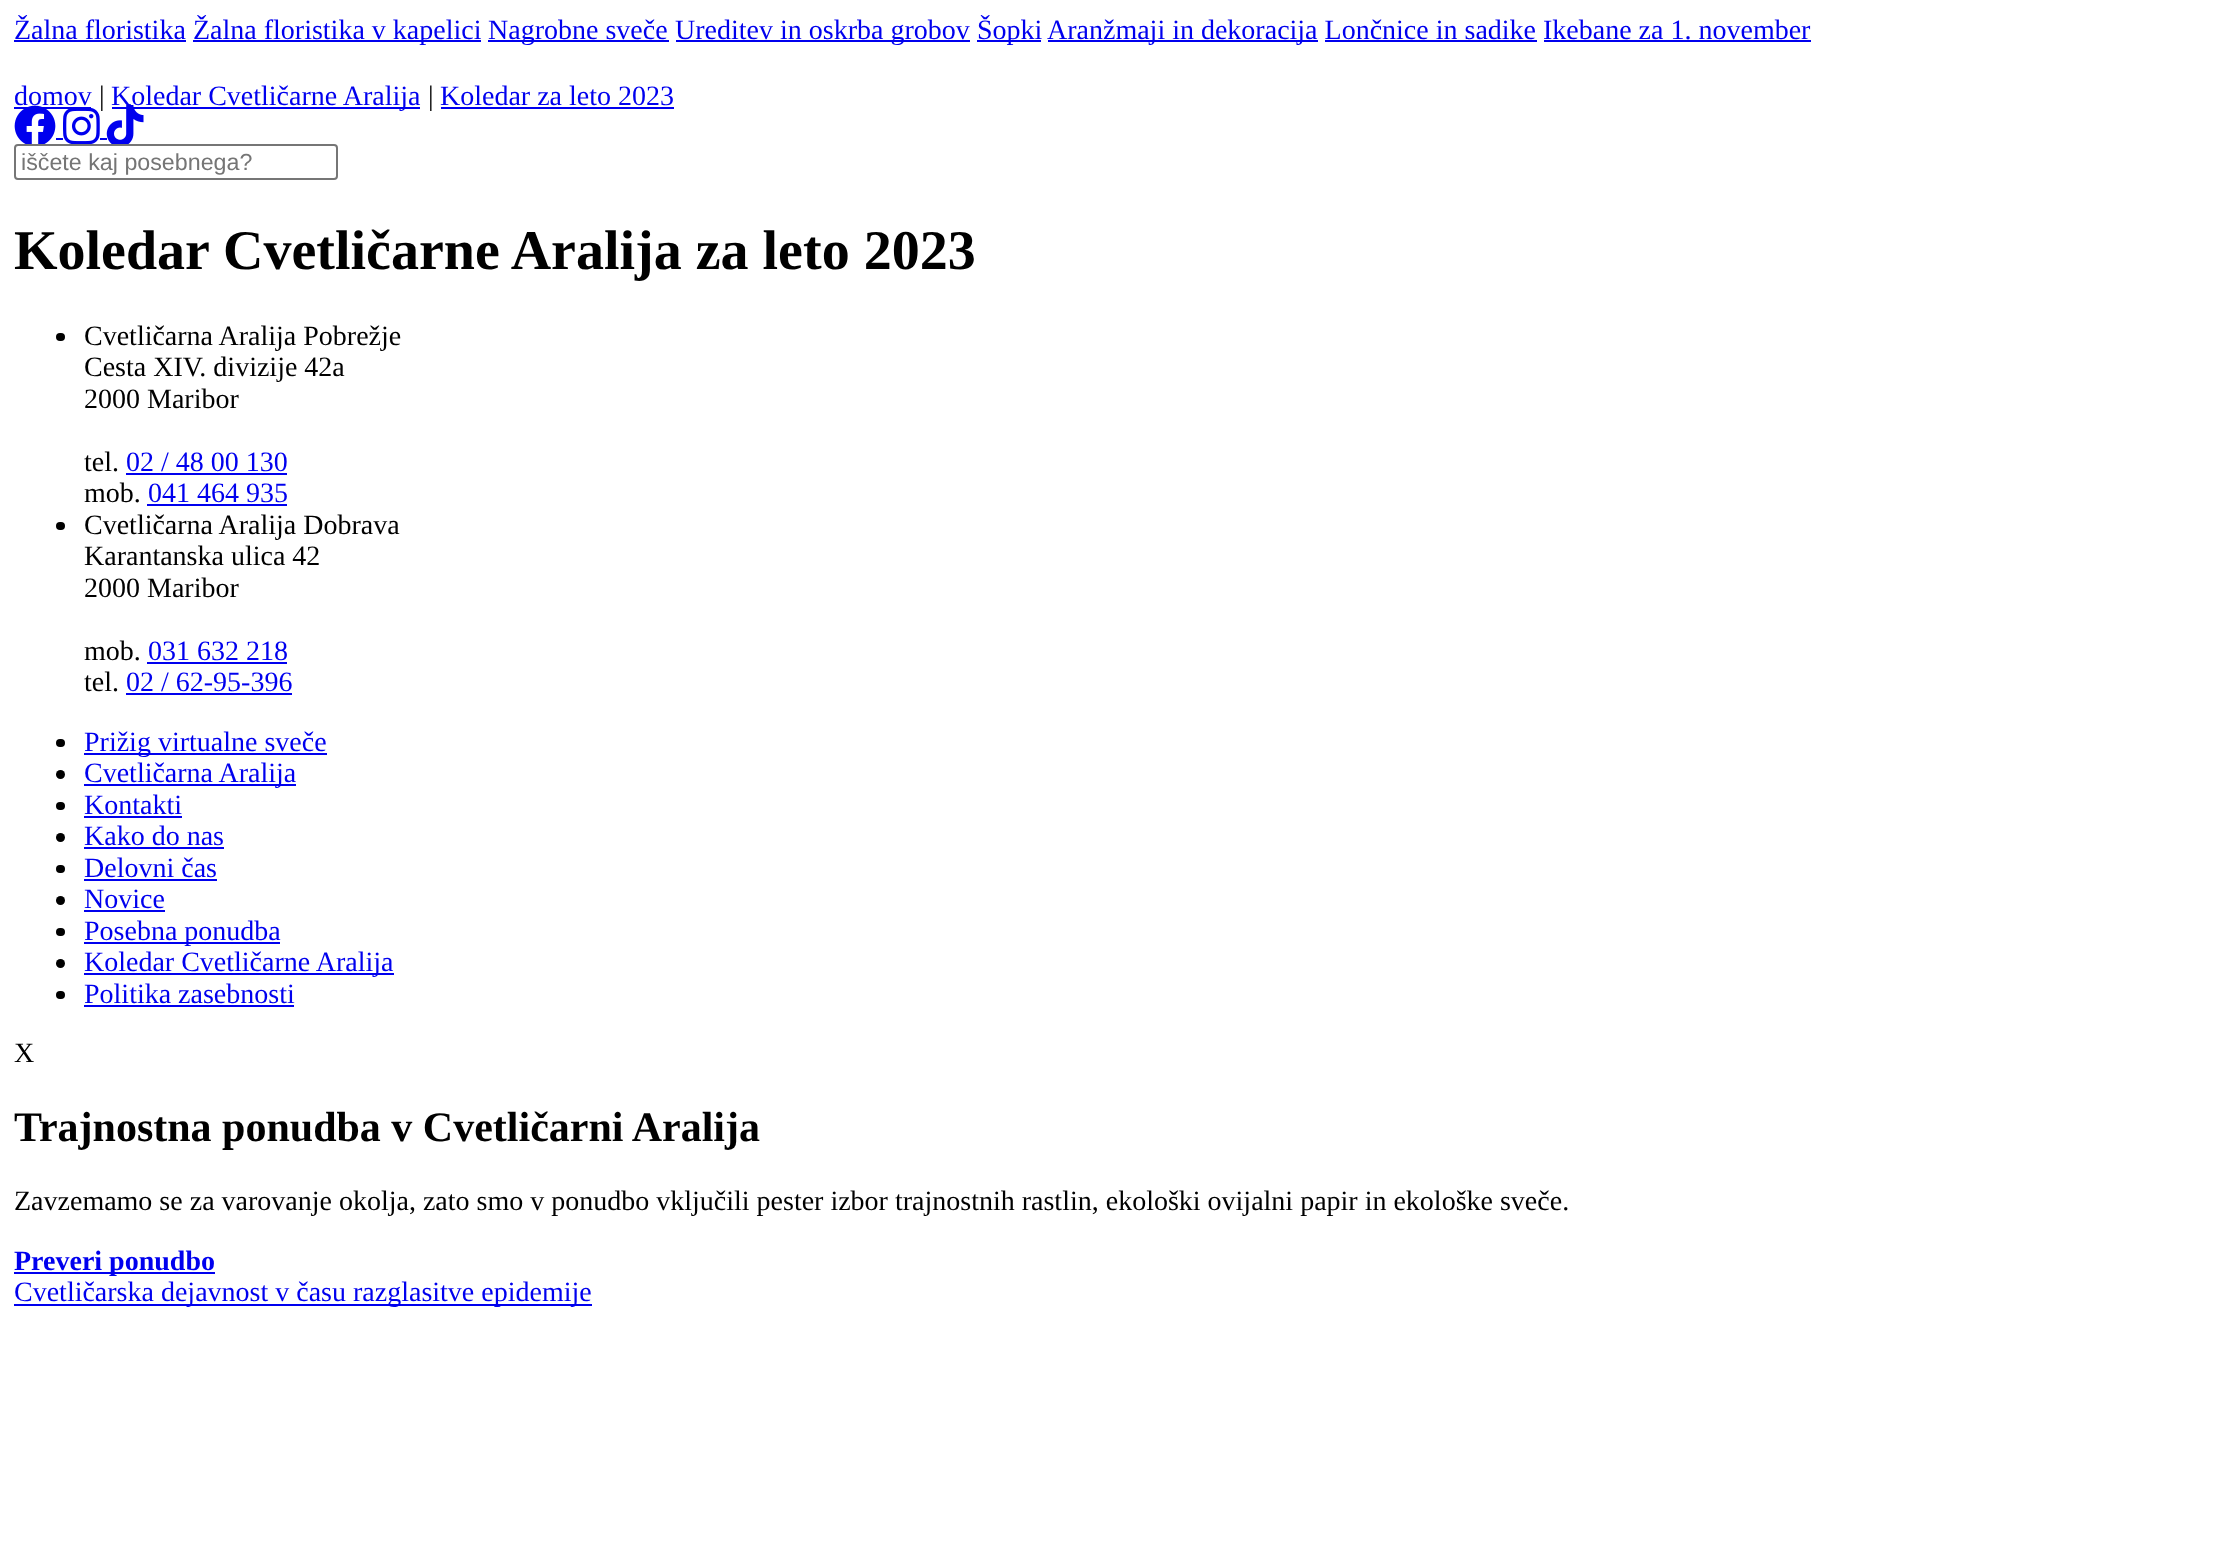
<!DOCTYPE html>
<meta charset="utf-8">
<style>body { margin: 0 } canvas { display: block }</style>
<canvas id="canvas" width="2228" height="1544"></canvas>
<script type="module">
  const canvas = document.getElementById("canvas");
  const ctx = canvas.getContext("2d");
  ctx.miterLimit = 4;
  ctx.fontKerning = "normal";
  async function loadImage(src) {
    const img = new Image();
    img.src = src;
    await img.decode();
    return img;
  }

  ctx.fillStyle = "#ffffff";
  ctx.fillRect(0, 0, 2228, 1544);
  ctx.font = "28px Liberation Serif";
  ctx.fillStyle = "#0000ee";
  ctx.fillText("Žalna floristika", 14, 39);
  ctx.fillRect(14, 40, 172, 2);
  ctx.fillRect(193, 40, 288, 2);
  ctx.fillText("Žalna floristika v kapelici", 193, 39);
  ctx.fillRect(488, 40, 181, 2);
  ctx.fillText("Nagrobne sveče", 488, 39);
  ctx.fillRect(676, 40, 294, 2);
  ctx.fillText("Ureditev in oskrba grobov", 675, 39);
  ctx.fillRect(977, 40, 64, 2);
  ctx.fillText("Šopki", 977, 39);
  ctx.fillRect(1048, 40, 270, 2);
  ctx.fillText("Aranžmaji in dekoracija Lončnice in sadike Ikebane za 1. november", 1047, 39);
  ctx.fillRect(1325, 40, 212, 2);
  ctx.fillRect(1544, 40, 267, 2);
  ctx.fillText("domov", 14, 105);
  ctx.fillRect(14, 107, 77, 2);
  ctx.fillStyle = "#000000";
  ctx.fillText("|", 99, 105);
  ctx.fillStyle = "#0000ee";
  ctx.fillRect(112, 107, 308, 2);
  ctx.fillText("Koledar Cvetličarne Aralija", 111, 105);
  ctx.fillStyle = "#000000";
  ctx.fillText("|", 428, 105);
  ctx.fillStyle = "#0000ee";
  ctx.fillText("Koledar za leto 2023", 440, 105);
  ctx.fillRect(441, 107, 233, 2);
  ctx.drawImage(await loadImage("img1.png"), 14, 105, 42, 39);
  ctx.fillRect(56, 138, 7, 2);
  ctx.drawImage(await loadImage("img2.png"), 63, 107, 37, 37);
  ctx.fillRect(100, 138, 7, 2);
  ctx.drawImage(await loadImage("img3.png"), 106, 105, 38, 39);
  ctx.beginPath();
  ctx.roundRect(15, 145, 322, 34, 3);
  ctx.strokeStyle = "#767676";
  ctx.lineWidth = 2;
  ctx.stroke();
  ctx.font = "23.25px Liberation Sans";
  ctx.fillStyle = "#757575";
  ctx.fillText("iščete kaj posebnega?", 21, 170);
  ctx.font = "bold 56px Liberation Serif";
  ctx.fillStyle = "#000000";
  ctx.fillText("Koledar Cvetličarne Aralija za leto 2023", 14, 269);
  ctx.beginPath();
  ctx.roundRect(56, 333, 9, 8, 4);
  ctx.fill();
  ctx.font = "28px Liberation Serif";
  ctx.fillText("Cvetličarna Aralija Pobrežje", 84, 345);
  ctx.fillText("Cesta XIV. divizije 42a", 84, 376);
  ctx.fillText("2000 Maribor", 84, 408);
  ctx.fillText("tel.", 84, 471);
  ctx.fillStyle = "#0000ee";
  ctx.fillText("02 / 48 00 130", 126, 471);
  ctx.fillRect(126, 473, 161, 2);
  ctx.fillStyle = "#000000";
  ctx.fillText("mob.", 84, 502);
  ctx.fillStyle = "#0000ee";
  ctx.fillText("041 464 935", 148, 502);
  ctx.fillRect(147, 504, 140, 2);
  ctx.fillStyle = "#000000";
  ctx.beginPath();
  ctx.roundRect(56, 522, 9, 8, 4);
  ctx.fill();
  ctx.fillText("Cvetličarna Aralija Dobrava", 84, 534);
  ctx.fillText("Karantanska ulica 42", 84, 565);
  ctx.fillText("2000 Maribor", 84, 597);
  ctx.fillText("mob.", 84, 660);
  ctx.fillStyle = "#0000ee";
  ctx.fillText("031 632 218", 148, 660);
  ctx.fillRect(147, 662, 140, 2);
  ctx.fillStyle = "#000000";
  ctx.fillText("tel.", 84, 691);
  ctx.fillStyle = "#0000ee";
  ctx.fillText("02 / 62-95-396", 126, 691);
  ctx.fillRect(126, 693, 166, 2);
  ctx.fillStyle = "#000000";
  ctx.beginPath();
  ctx.roundRect(56, 739, 9, 8, 4);
  ctx.fill();
  ctx.fillStyle = "#0000ee";
  ctx.fillRect(84, 753, 243, 2);
  ctx.fillText("Prižig virtualne sveče", 84, 751);
  ctx.fillStyle = "#000000";
  ctx.beginPath();
  ctx.arc(60.5, 774.5, 4.5, 0, Math.PI * 2);
  ctx.fill();
  ctx.fillStyle = "#0000ee";
  ctx.fillRect(84, 784, 212, 2);
  ctx.fillText("Cvetličarna Aralija", 84, 782);
  ctx.fillStyle = "#000000";
  ctx.beginPath();
  ctx.roundRect(56, 802, 9, 8, 4);
  ctx.fill();
  ctx.fillStyle = "#0000ee";
  ctx.fillText("Kontakti", 84, 814);
  ctx.fillRect(84, 816, 98, 2);
  ctx.fillStyle = "#000000";
  ctx.beginPath();
  ctx.arc(60.5, 837.5, 4.5, 0, Math.PI * 2);
  ctx.fill();
  ctx.fillStyle = "#0000ee";
  ctx.fillText("Kako do nas", 84, 845);
  ctx.fillRect(84, 847, 140, 2);
  ctx.fillStyle = "#000000";
  ctx.beginPath();
  ctx.roundRect(56, 865, 9, 8, 4);
  ctx.fill();
  ctx.fillStyle = "#0000ee";
  ctx.fillText("Delovni čas", 84, 877);
  ctx.fillRect(84, 879, 133, 2);
  ctx.fillStyle = "#000000";
  ctx.beginPath();
  ctx.arc(60.5, 900.5, 4.5, 0, Math.PI * 2);
  ctx.fill();
  ctx.fillStyle = "#0000ee";
  ctx.fillText("Novice", 84, 908);
  ctx.fillRect(84, 910, 81, 2);
  ctx.fillStyle = "#000000";
  ctx.beginPath();
  ctx.roundRect(56, 928, 9, 8, 4);
  ctx.fill();
  ctx.fillStyle = "#0000ee";
  ctx.fillRect(84, 942, 196, 2);
  ctx.fillText("Posebna ponudba", 84, 940);
  ctx.fillStyle = "#000000";
  ctx.beginPath();
  ctx.arc(60.5, 963.5, 4.5, 0, Math.PI * 2);
  ctx.fill();
  ctx.fillStyle = "#0000ee";
  ctx.fillRect(84, 973, 310, 2);
  ctx.fillText("Koledar Cvetličarne Aralija", 84, 971);
  ctx.fillStyle = "#000000";
  ctx.beginPath();
  ctx.roundRect(56, 991, 9, 8, 4);
  ctx.fill();
  ctx.fillStyle = "#0000ee";
  ctx.fillText("Politika zasebnosti", 84, 1003);
  ctx.fillRect(84, 1005, 210, 2);
  ctx.fillStyle = "#000000";
  ctx.fillText("X", 14, 1062);
  ctx.font = "bold 42px Liberation Serif";
  ctx.fillText("Trajnostna ponudba v Cvetličarni Aralija", 14, 1141);
  ctx.font = "28px Liberation Serif";
  ctx.fillText("Zavzemamo se za varovanje okolja, zato smo v ponudbo vključili pester izbor trajnostnih rastlin, ekološki ovijalni papir in ekološke sveče.", 14, 1210);
  ctx.fillStyle = "#0000ee";
  ctx.fillRect(14, 1272, 201, 2);
  ctx.font = "bold 28px Liberation Serif";
  ctx.fillText("Preveri ponudbo", 14, 1270);
  ctx.fillRect(14, 1304, 578, 2);
  ctx.font = "28px Liberation Serif";
  ctx.fillText("Cvetličarska dejavnost v času razglasitve epidemije", 14, 1301);
</script>
